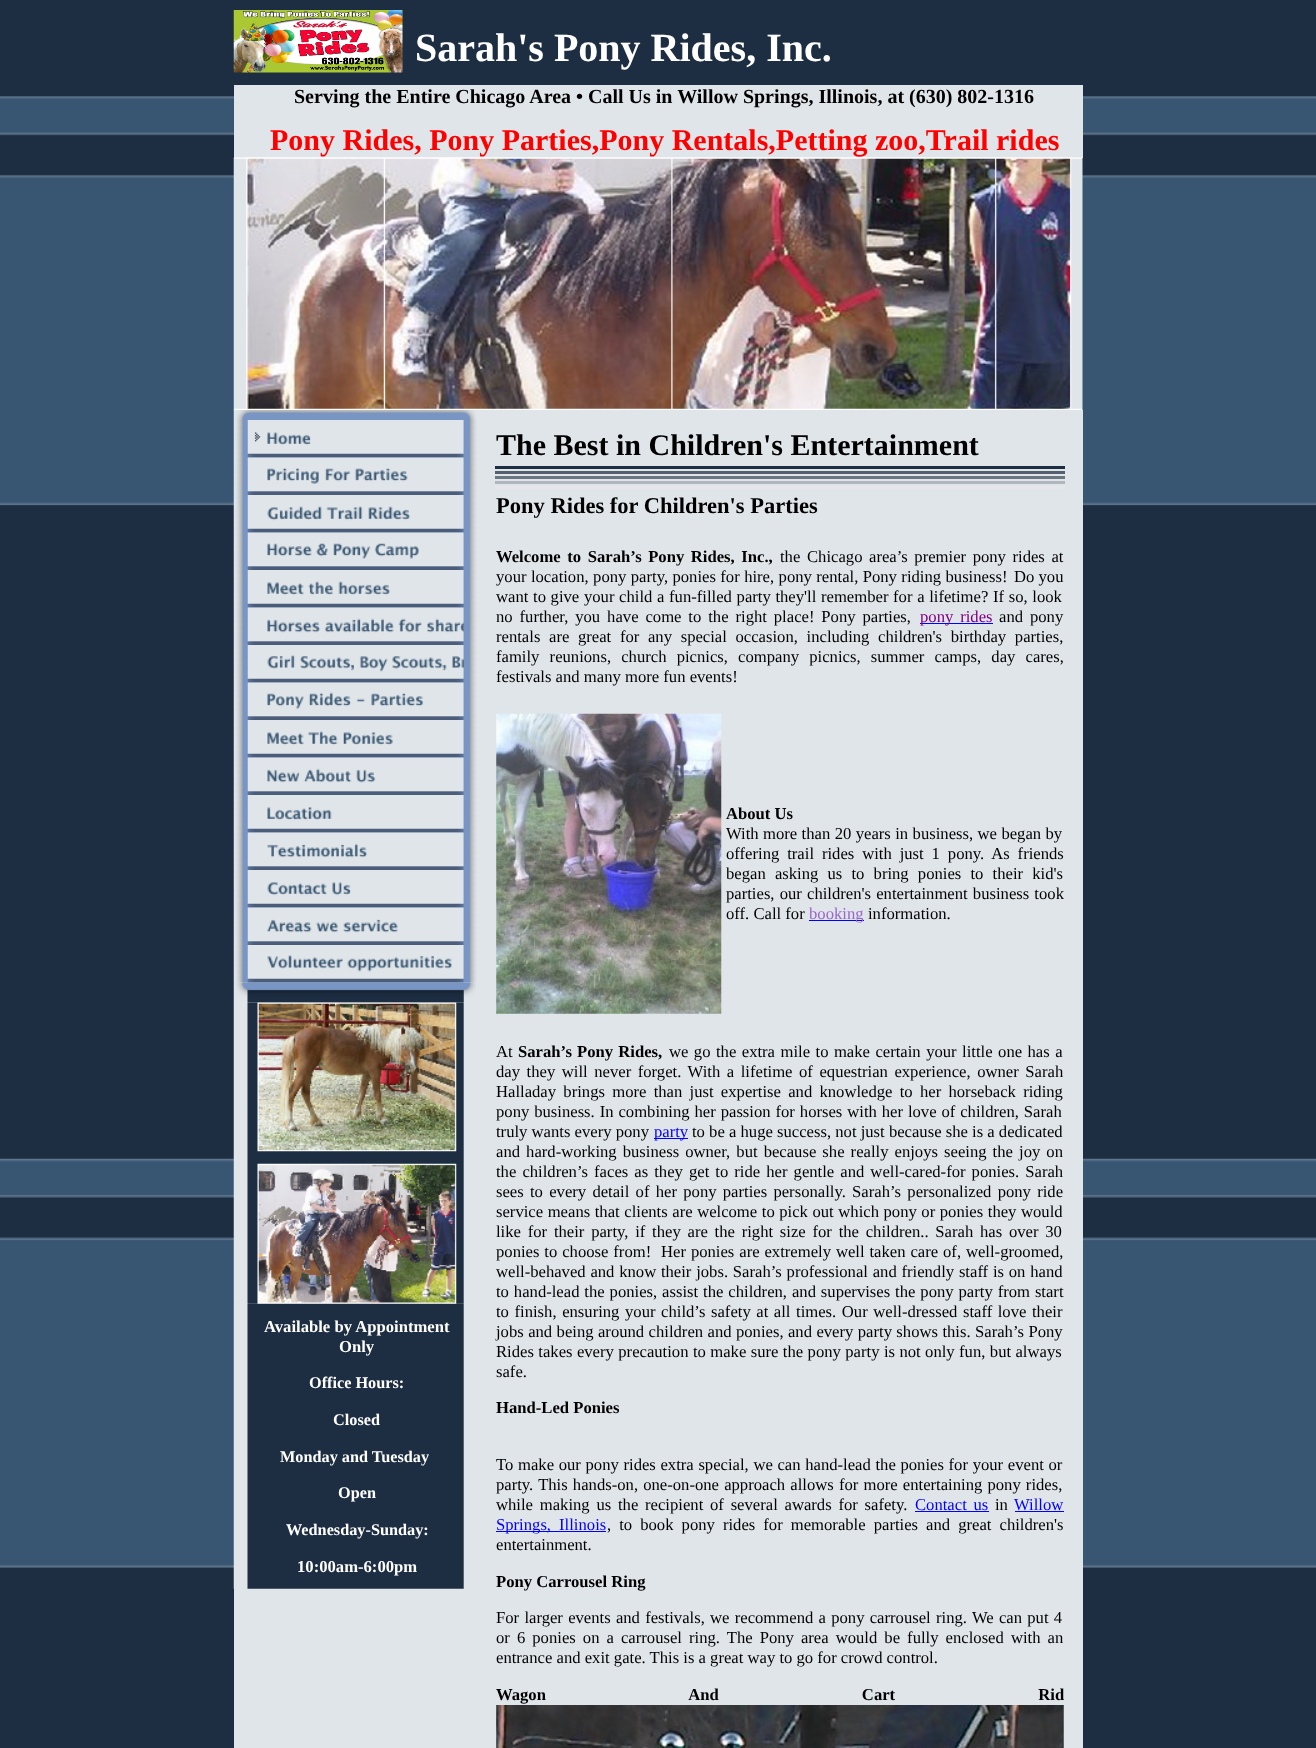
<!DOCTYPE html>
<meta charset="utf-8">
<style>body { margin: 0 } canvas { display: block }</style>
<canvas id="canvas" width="1316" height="1748"></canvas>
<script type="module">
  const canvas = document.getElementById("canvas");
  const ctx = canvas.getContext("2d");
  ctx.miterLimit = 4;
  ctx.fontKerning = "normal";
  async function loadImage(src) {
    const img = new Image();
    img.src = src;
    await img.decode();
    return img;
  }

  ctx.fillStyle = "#ffffff";
  ctx.fillRect(0, 0, 1316, 1748);
  ctx.drawImage(await loadImage("img1.png"), 0, 0, 1316, 1748);
  ctx.drawImage(await loadImage("img2.png"), 233, 10, 170, 63);
  ctx.font = "bold 40px Liberation Serif";
  ctx.fillText("Sarah's Pony Rides, Inc.", 415, 61);
  ctx.fillStyle = "#e0e5e9";
  ctx.fillRect(234, 85, 849, 73);
  ctx.font = "bold 20px Liberation Serif";
  ctx.fillStyle = "#000000";
  ctx.fillText("Serving the Entire Chicago Area • Call Us in Willow Springs, Illinois, at (630) 802-1316", 294, 103);
  ctx.font = "bold 30px Liberation Serif";
  ctx.fillStyle = "#ff0000";
  ctx.fillText("Pony Rides, Pony Parties,Pony Rentals,Petting zoo,Trail rides", 270, 150);
  ctx.drawImage(await loadImage("img3.png"), 233, 157, 850, 253);
  ctx.drawImage(await loadImage("img4.png"), 246, 157, 826, 252);
  ctx.fillStyle = "#e0e5e9";
  ctx.fillRect(234, 410, 849, 1338);
  ctx.drawImage(await loadImage("img5.png"), 233, 410, 243, 10);
  ctx.drawImage(await loadImage("img6.png"), 233, 420, 244, 563);
  ctx.drawImage(await loadImage("img7.png"), 247, 420, 217, 38);
  ctx.drawImage(await loadImage("img8.png"), 247, 457, 217, 38);
  ctx.drawImage(await loadImage("img9.png"), 247, 495, 217, 38);
  ctx.drawImage(await loadImage("img10.png"), 247, 532, 217, 38);
  ctx.drawImage(await loadImage("img11.png"), 247, 570, 217, 38);
  ctx.drawImage(await loadImage("img12.png"), 247, 607, 217, 38);
  ctx.drawImage(await loadImage("img13.png"), 247, 645, 217, 38);
  ctx.drawImage(await loadImage("img14.png"), 247, 682, 217, 38);
  ctx.drawImage(await loadImage("img15.png"), 247, 720, 217, 38);
  ctx.drawImage(await loadImage("img16.png"), 247, 757, 217, 38);
  ctx.drawImage(await loadImage("img17.png"), 247, 795, 217, 38);
  ctx.drawImage(await loadImage("img18.png"), 247, 832, 217, 38);
  ctx.drawImage(await loadImage("img19.png"), 247, 870, 217, 38);
  ctx.drawImage(await loadImage("img20.png"), 247, 907, 217, 38);
  ctx.drawImage(await loadImage("img23.png"), 233, 1002, 231, 302);
  ctx.drawImage(await loadImage("img22.png"), 233, 982, 243, 21);
  ctx.drawImage(await loadImage("img21.png"), 247, 945, 217, 38);
  ctx.drawImage(await loadImage("img24.png"), 257, 1002, 200, 150);
  ctx.drawImage(await loadImage("img26.png"), 233, 1303, 231, 286);
  ctx.drawImage(await loadImage("img25.png"), 257, 1163, 200, 141);
  ctx.font = "bold 16.65px Liberation Serif";
  ctx.fillStyle = "#ffffff";
  ctx.fillText("Available by Appointment", 264, 1332);
  ctx.fillText("Only", 339, 1352);
  ctx.font = "bold 16.25px Liberation Serif";
  ctx.fillText("Office Hours:", 309, 1388);
  ctx.fillText("Closed", 333, 1425);
  ctx.fillText("Monday and Tuesday", 280, 1462);
  ctx.fillText("Open", 338, 1498);
  ctx.fillText("Wednesday-Sunday:", 286, 1535);
  ctx.font = "bold 16.65px Liberation Serif";
  ctx.fillText("10:00am-6:00pm", 297, 1572);
  ctx.font = "bold 30px Liberation Serif";
  ctx.fillStyle = "#000000";
  ctx.fillText("The Best in Children's Entertainment", 496, 455);
  ctx.fillStyle = "#1d2e42";
  ctx.fillRect(495, 466, 570, 3);
  ctx.fillStyle = "#53606f";
  ctx.fillRect(495, 471, 570, 3);
  ctx.fillStyle = "#6b7683";
  ctx.fillRect(495, 476, 570, 3);
  ctx.fillStyle = "#b0b6bd";
  ctx.fillRect(495, 481, 570, 3);
  ctx.fillStyle = "#e4e6e9";
  ctx.fillRect(495, 486, 570, 3);
  ctx.font = "bold 22.5px Liberation Serif";
  ctx.fillStyle = "#000000";
  ctx.fillText("Pony Rides for Children's Parties", 496, 513);
  ctx.wordSpacing = "2.4px";
  ctx.font = "bold 16.65px Liberation Serif";
  ctx.fillText("Welcome to Sarah’s Pony Rides, Inc.,", 496, 562);
  ctx.wordSpacing = "0px";
  ctx.font = "16.65px Liberation Serif";
  ctx.fillText("the", 780, 562);
  ctx.fillText("Chicago", 807, 562);
  ctx.wordSpacing = "2.4px";
  ctx.fillText("area’s premier pony rides at", 869, 562);
  ctx.wordSpacing = "0.25px";
  ctx.fillText("your location, pony party, ponies for hire, pony rental, Pony riding business!", 496, 582);
  ctx.wordSpacing = "0px";
  ctx.fillText("Do you", 1014, 582);
  ctx.wordSpacing = "0.5px";
  ctx.fillText("want to give your child a fun-filled party they'll remember for a lifetime? If so, look", 496, 602);
  ctx.wordSpacing = "2.75px";
  ctx.fillText("no further, you have come to the right place! Pony parties,", 496, 622);
  ctx.fillStyle = "#0000ff";
  ctx.fillRect(920, 623, 73, 1);
  ctx.fillStyle = "#800080";
  ctx.fillText("pony rides", 920, 622);
  ctx.fillStyle = "#000000";
  ctx.fillText("and pony", 999, 622);
  ctx.wordSpacing = "4.5px";
  ctx.fillText("rentals are great for any special occasion, including children's birthday parties,", 496, 642);
  ctx.wordSpacing = "6px";
  ctx.fillText("family reunions, church picnics, company picnics, summer camps, day cares,", 496, 662);
  ctx.wordSpacing = "0px";
  ctx.fillText("festivals and many more fun events!", 496, 682);
  ctx.drawImage(await loadImage("img27.png"), 496, 713, 226, 301);
  ctx.font = "bold 16.65px Liberation Serif";
  ctx.fillText("About Us", 726, 819);
  ctx.wordSpacing = "0.25px";
  ctx.font = "16.65px Liberation Serif";
  ctx.fillText("With more than 20 years in business, we began by", 726, 839);
  ctx.wordSpacing = "3.75px";
  ctx.fillText("offering trail rides with just 1 pony. As friends", 726, 859);
  ctx.wordSpacing = "5px";
  ctx.fillText("began asking us to bring ponies to their kid's", 726, 879);
  ctx.wordSpacing = "1px";
  ctx.fillText("parties, our children's entertainment business took", 726, 899);
  ctx.wordSpacing = "0px";
  ctx.fillText("off. Call for", 726, 919);
  ctx.fillStyle = "#0000ff";
  ctx.fillRect(809, 920, 55, 1);
  ctx.fillStyle = "#9966cc";
  ctx.fillText("booking", 809, 919);
  ctx.fillStyle = "#000000";
  ctx.fillText("information.", 868, 919);
  ctx.fillText("At", 496, 1057);
  ctx.wordSpacing = "1px";
  ctx.font = "bold 16.65px Liberation Serif";
  ctx.fillText("Sarah’s Pony Rides,", 518, 1057);
  ctx.wordSpacing = "1.3px";
  ctx.font = "16.65px Liberation Serif";
  ctx.fillText("we go the extra mile to make certain your little one has a", 669, 1057);
  ctx.wordSpacing = "2.4px";
  ctx.fillText("day they will never forget. With a lifetime of equestrian experience, owner Sarah", 496, 1077);
  ctx.wordSpacing = "3.1px";
  ctx.fillText("Halladay brings more than just expertise and knowledge to her horseback riding", 496, 1097);
  ctx.wordSpacing = "0.75px";
  ctx.fillText("pony business. In combining her passion for horses with her love of children, Sarah", 496, 1117);
  ctx.wordSpacing = "0px";
  ctx.fillText("truly wants every pony", 496, 1137);
  ctx.fillStyle = "#0000ff";
  ctx.fillRect(654, 1138, 34, 1);
  ctx.fillText("party", 654, 1137);
  ctx.fillStyle = "#000000";
  ctx.fillText("to be a huge success, not just because she is a dedicated", 692, 1137);
  ctx.wordSpacing = "1.9px";
  ctx.fillText("and hard-working business owner, but because she really enjoys seeing the joy on", 496, 1157);
  ctx.fillText("the children’s faces as they get to ride her gentle and well-cared-for ponies. Sarah", 496, 1177);
  ctx.wordSpacing = "2.1px";
  ctx.fillText("sees to every detail of her pony parties personally. Sarah’s personalized pony ride", 496, 1197);
  ctx.wordSpacing = "0.4px";
  ctx.fillText("service means that clients are welcome to pick out which pony or ponies they would", 496, 1217);
  ctx.wordSpacing = "2.6px";
  ctx.fillText("like for their party, if they are the right size for the children.. Sarah has over 30", 496, 1237);
  ctx.wordSpacing = "0.75px";
  ctx.fillText("ponies to choose from!  Her ponies are extremely well taken care of, well-groomed,", 496, 1257);
  ctx.wordSpacing = "0.6px";
  ctx.fillText("well-behaved and know their jobs. Sarah’s professional and friendly staff is on hand", 496, 1277);
  ctx.wordSpacing = "0.75px";
  ctx.fillText("to hand-lead the ponies, assist the children, and supervises the pony party from start", 496, 1297);
  ctx.wordSpacing = "1.4px";
  ctx.fillText("to finish, ensuring your child’s safety at all times. Our well-dressed staff love their", 496, 1317);
  ctx.wordSpacing = "0.25px";
  ctx.fillText("jobs and being around children and ponies, and every party shows this. Sarah’s Pony", 496, 1337);
  ctx.fillText("Rides takes every precaution to make sure the pony party is not only fun, but always", 496, 1357);
  ctx.wordSpacing = "0px";
  ctx.fillText("safe.", 496, 1377);
  ctx.font = "bold 16.65px Liberation Serif";
  ctx.fillText("Hand-Led Ponies", 496, 1413);
  ctx.wordSpacing = "0.5px";
  ctx.font = "16.65px Liberation Serif";
  ctx.fillText("To make our pony rides extra special, we can hand-lead the ponies for your event or", 496, 1470);
  ctx.wordSpacing = "1px";
  ctx.fillText("party. This hands-on, one-on-one approach allows for more entertaining pony rides,", 496, 1490);
  ctx.wordSpacing = "2.6px";
  ctx.fillText("while making us the recipient of several awards for safety.", 496, 1510);
  ctx.fillStyle = "#0000ff";
  ctx.fillText("Contact us", 915, 1510);
  ctx.fillRect(915, 1511, 74, 1);
  ctx.wordSpacing = "0px";
  ctx.fillStyle = "#000000";
  ctx.fillText("in", 995, 1510);
  ctx.fillStyle = "#0000ff";
  ctx.fillText("Willow", 1014, 1510);
  ctx.fillRect(1015, 1511, 49, 1);
  ctx.fillRect(496, 1531, 110, 1);
  ctx.wordSpacing = "3.9px";
  ctx.fillText("Springs, Illinois", 496, 1530);
  ctx.fillStyle = "#000000";
  ctx.fillText(", to book pony rides for memorable parties and great children's", 607, 1530);
  ctx.wordSpacing = "0px";
  ctx.fillText("entertainment.", 496, 1550);
  ctx.font = "bold 16.65px Liberation Serif";
  ctx.fillText("Pony Carrousel Ring", 496, 1587);
  ctx.wordSpacing = "1.1px";
  ctx.font = "16.65px Liberation Serif";
  ctx.fillText("For larger events and festivals, we recommend a pony carrousel ring. We can put 4", 496, 1623);
  ctx.wordSpacing = "2.9px";
  ctx.fillText("or 6 ponies on a carrousel ring. The Pony area would be fully enclosed with an", 496, 1643);
  ctx.wordSpacing = "0px";
  ctx.fillText("entrance and exit gate. This is a great way to go for crowd control.", 496, 1663);
  ctx.wordSpacing = "139px";
  ctx.font = "bold 16.65px Liberation Serif";
  ctx.fillText("Wagon And Cart Rid", 496, 1700);
  ctx.drawImage(await loadImage("img28.png"), 496, 1705, 568, 43);
</script>
